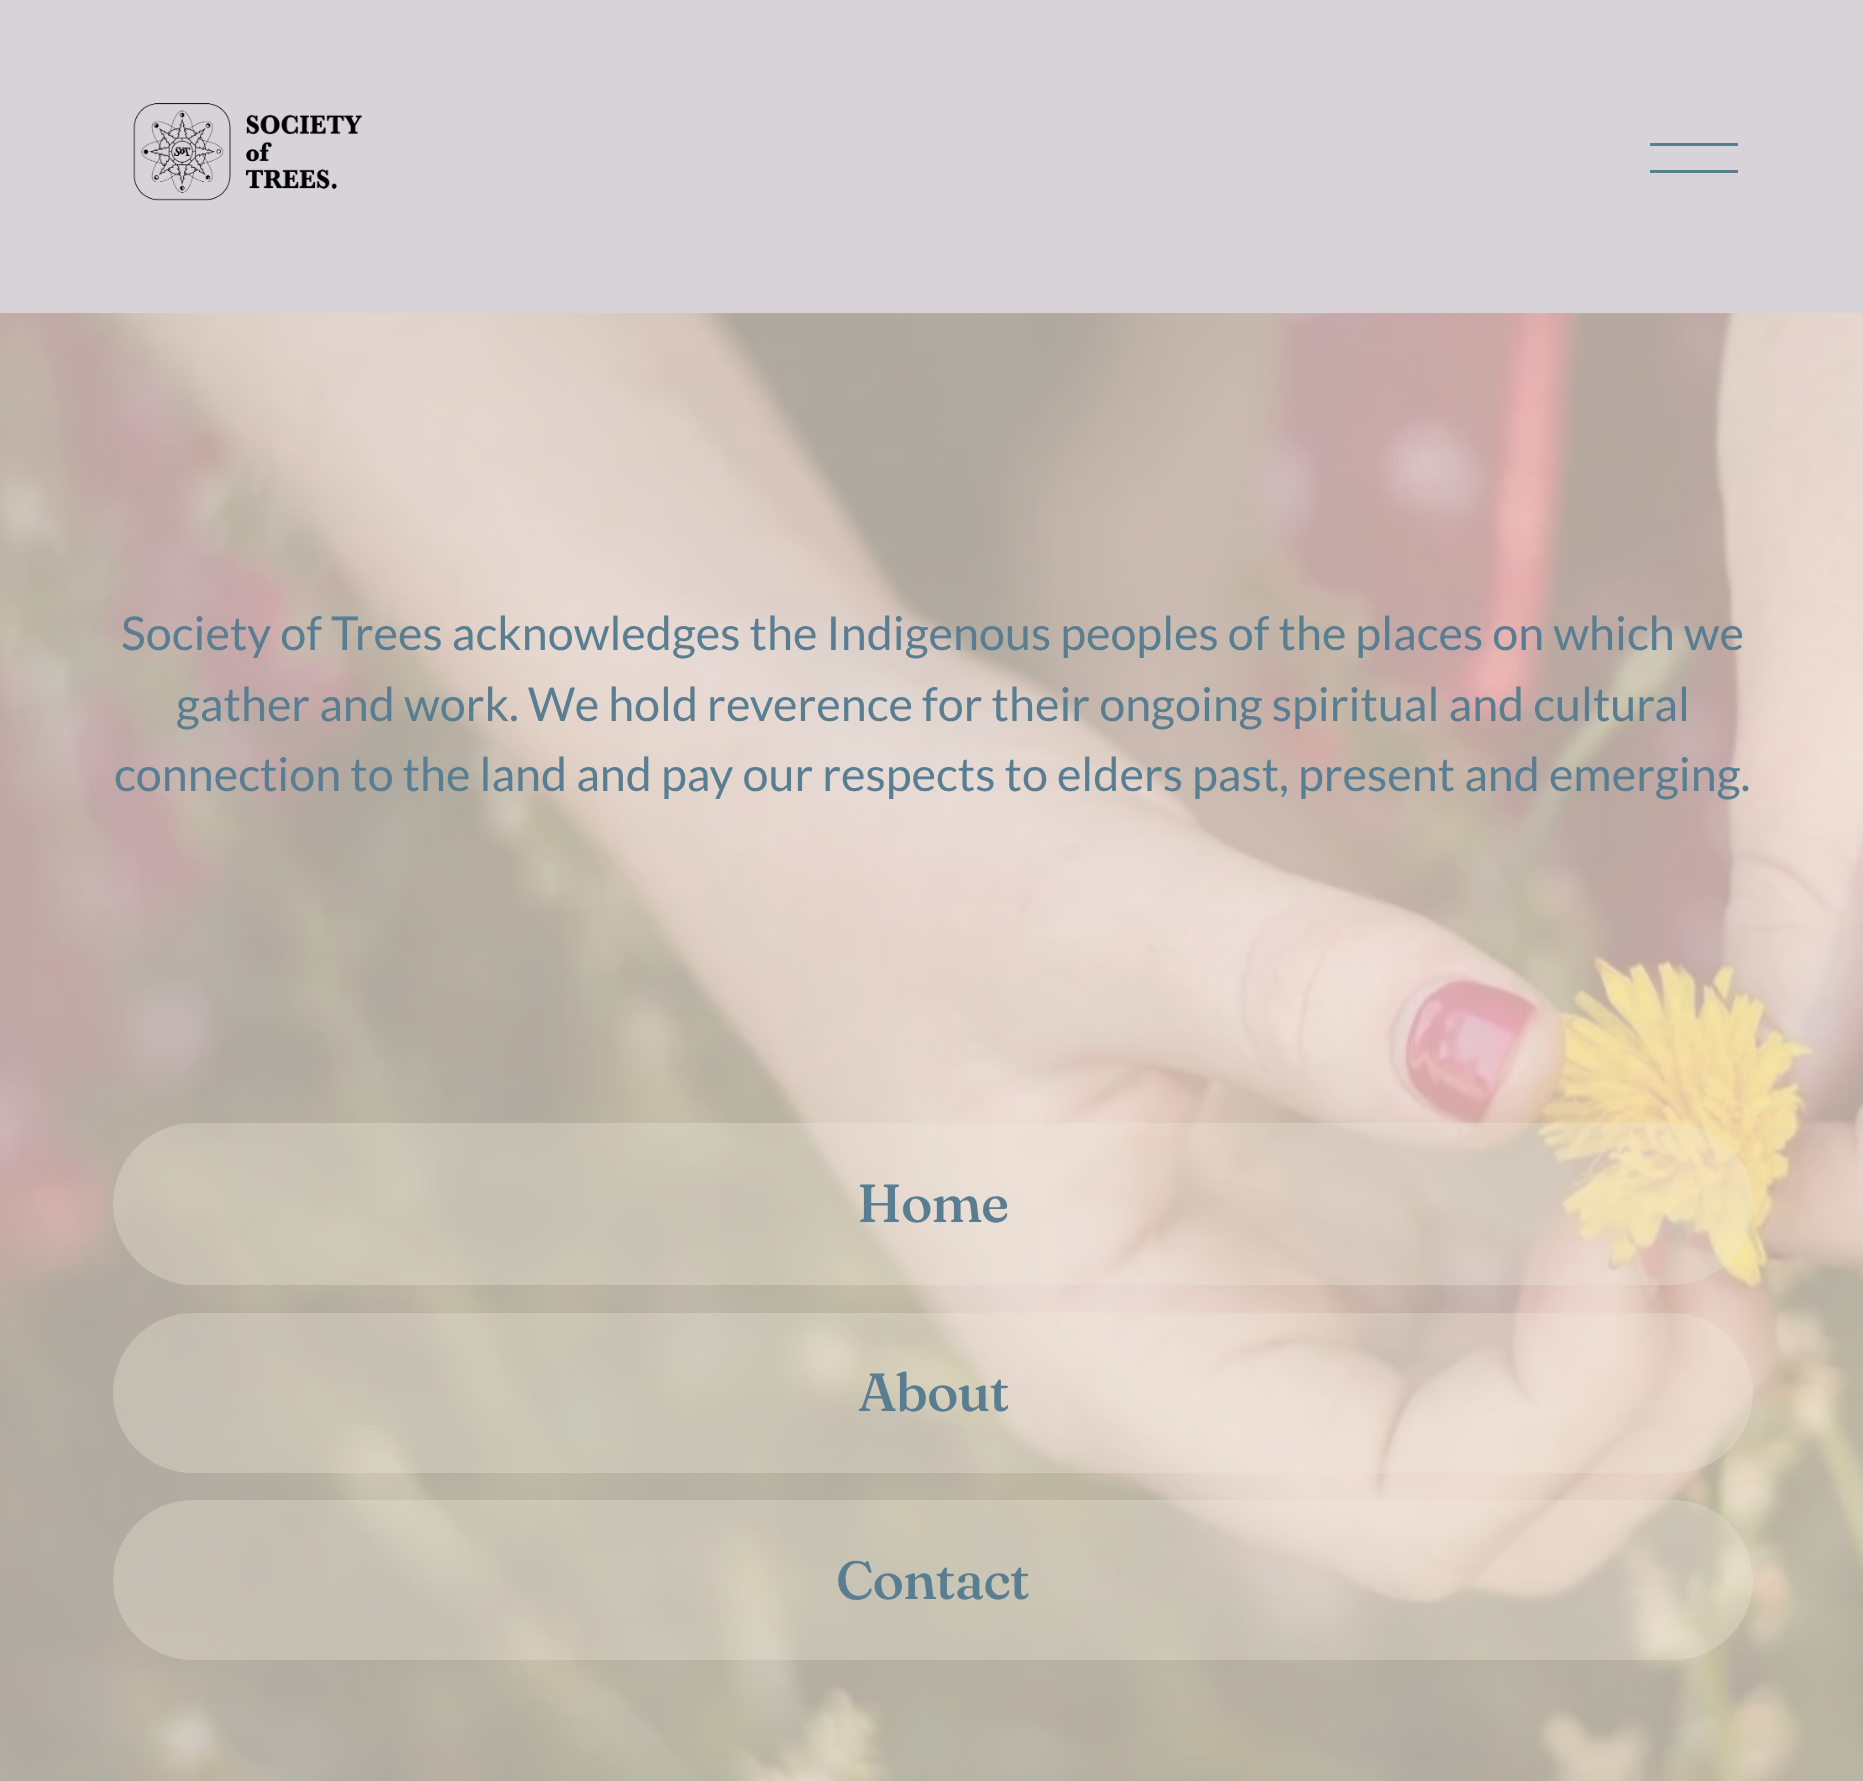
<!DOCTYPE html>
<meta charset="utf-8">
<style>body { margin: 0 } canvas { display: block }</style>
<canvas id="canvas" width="1863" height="1781"></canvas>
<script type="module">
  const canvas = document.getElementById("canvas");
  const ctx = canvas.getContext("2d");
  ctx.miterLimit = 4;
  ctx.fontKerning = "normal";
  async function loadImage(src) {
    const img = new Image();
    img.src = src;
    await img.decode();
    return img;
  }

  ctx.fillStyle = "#ffffff";
  ctx.fillRect(0, 0, 1863, 1781);
  ctx.fillStyle = "#d7d3d9";
  ctx.fillRect(0, 0, 1863, 313);
  ctx.drawImage(await loadImage("img1.png"), 133, 103, 229, 98);
  ctx.fillStyle = "#597d91";
  ctx.fillRect(1650, 143, 88, 3);
  ctx.fillRect(1650, 170, 88, 3);
  ctx.drawImage(await loadImage("img2.png"), 0, 313, 1863, 1468);
  ctx.font = "46.7px Lato";
  ctx.fillText("Society of Trees acknowledges the Indigenous peoples of the places on which we", 121, 650);
  ctx.fillText("gather and work. We hold reverence for their ongoing spiritual and cultural", 176, 721);
  ctx.fillText("connection to the land and pay our respects to elders past, present and emerging.", 114, 791);
  ctx.fillStyle = "rgba(243, 234, 222, 0.3)";
  ctx.beginPath();
  ctx.roundRect(113, 1123, 1640, 162, 81);
  ctx.fill();
  ctx.letterSpacing = "-1px";
  ctx.font = "500 53.5px Fraunces";
  ctx.fillStyle = "#597d91";
  ctx.fillText("Home", 857, 1222);
  ctx.fillStyle = "rgba(243, 234, 222, 0.3)";
  ctx.beginPath();
  ctx.roundRect(113, 1313, 1640, 160, 80);
  ctx.fill();
  ctx.fillStyle = "#597d91";
  ctx.fillText("About", 858, 1411);
  ctx.fillStyle = "rgba(243, 234, 222, 0.3)";
  ctx.beginPath();
  ctx.roundRect(113, 1500, 1640, 160, 80);
  ctx.fill();
  ctx.fillStyle = "#597d91";
  ctx.fillText("Contact", 836, 1599);
</script>
